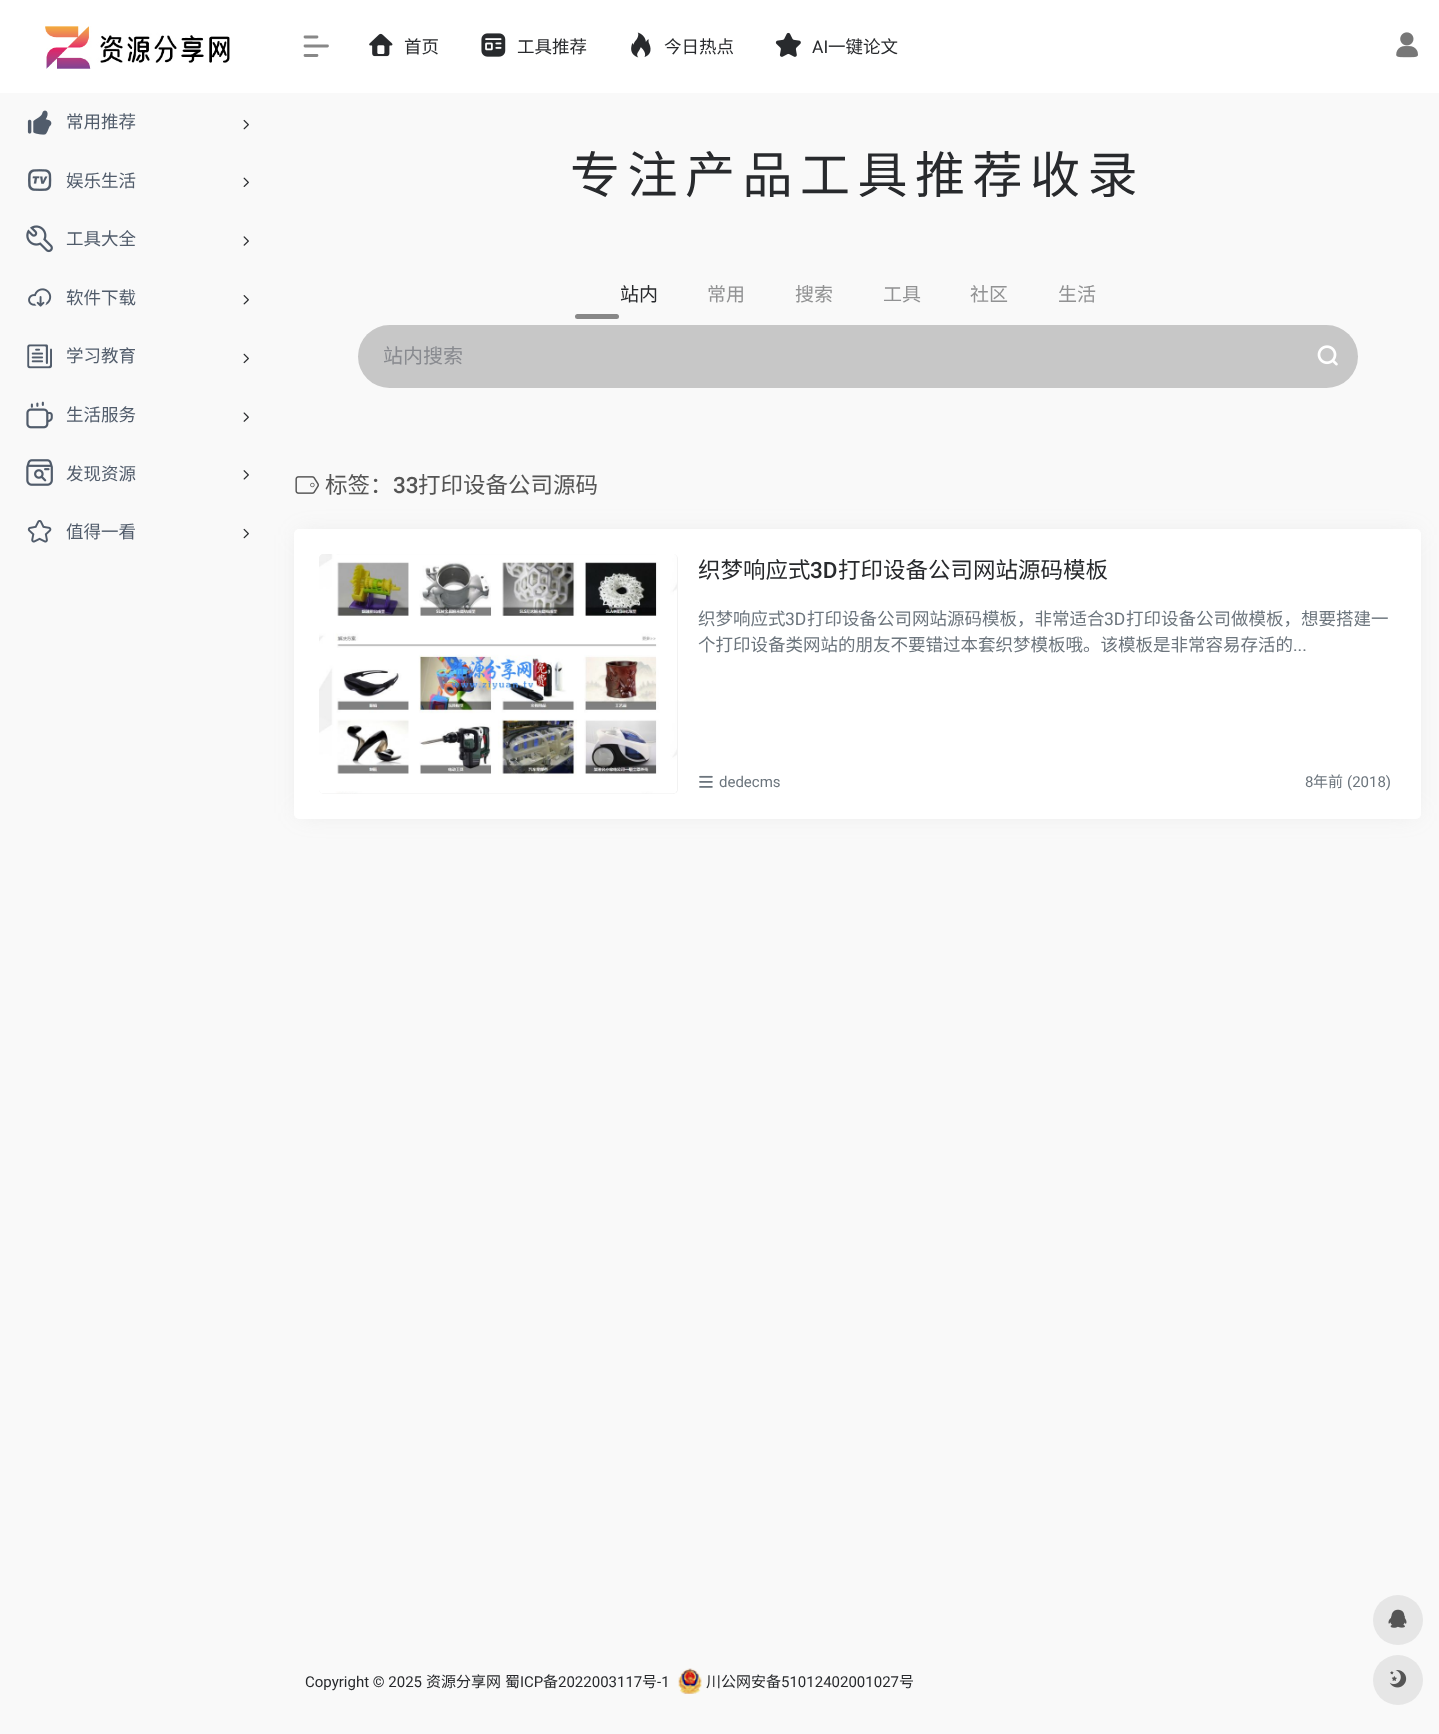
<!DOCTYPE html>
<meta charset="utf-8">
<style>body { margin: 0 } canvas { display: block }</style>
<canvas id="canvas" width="1439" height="1734"></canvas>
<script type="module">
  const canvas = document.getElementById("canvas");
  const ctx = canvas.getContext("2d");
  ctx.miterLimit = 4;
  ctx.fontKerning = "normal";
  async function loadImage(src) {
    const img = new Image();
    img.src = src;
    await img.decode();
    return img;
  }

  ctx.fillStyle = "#f9f9f9";
  ctx.fillRect(0, 0, 1439, 1734);
  ctx.fillStyle = "#ffffff";
  ctx.fillRect(0, 0, 1439, 93);
  ctx.drawImage(await loadImage("img1.png"), 45, 26, 185, 43);
  ctx.drawImage(await loadImage("img2.png"), 27, 110, 25, 25);
  ctx.font = "17.5px Noto Sans CJK SC";
  ctx.fillStyle = "#515c6b";
  ctx.fillText("常用推荐", 66, 128);
  ctx.drawImage(await loadImage("img3.png"), 243, 119, 6, 11);
  ctx.drawImage(await loadImage("img4.png"), 28, 169, 24, 22);
  ctx.fillText("娱乐生活", 66, 187);
  ctx.drawImage(await loadImage("img5.png"), 243, 177, 6, 10);
  ctx.drawImage(await loadImage("img6.png"), 26, 225, 27, 28);
  ctx.fillText("工具大全", 66, 245);
  ctx.drawImage(await loadImage("img7.png"), 243, 236, 6, 10);
  ctx.drawImage(await loadImage("img8.png"), 28, 288, 24, 19);
  ctx.fillText("软件下载", 66, 304);
  ctx.drawImage(await loadImage("img9.png"), 243, 295, 6, 10);
  ctx.drawImage(await loadImage("img10.png"), 27, 344, 25, 25);
  ctx.fillText("学习教育", 66, 362);
  ctx.drawImage(await loadImage("img11.png"), 243, 353, 6, 11);
  ctx.drawImage(await loadImage("img12.png"), 26, 401, 27, 28);
  ctx.fillText("生活服务", 66, 421);
  ctx.drawImage(await loadImage("img13.png"), 243, 412, 6, 10);
  ctx.drawImage(await loadImage("img14.png"), 26, 459, 27, 27);
  ctx.fillText("发现资源", 66, 480);
  ctx.drawImage(await loadImage("img15.png"), 243, 470, 6, 10);
  ctx.drawImage(await loadImage("img16.png"), 27, 520, 25, 23);
  ctx.fillText("值得一看", 66, 538);
  ctx.drawImage(await loadImage("img17.png"), 243, 528, 6, 11);
  ctx.beginPath();
  ctx.moveTo(305, 37);
  ctx.lineTo(317, 37);
  ctx.moveTo(305, 46);
  ctx.lineTo(327.5, 46);
  ctx.moveTo(305, 55.5);
  ctx.lineTo(317, 55.5);
  ctx.strokeStyle = "#888888";
  ctx.lineWidth = 2.8;
  ctx.lineCap = "round";
  ctx.lineJoin = "round";
  ctx.stroke();
  ctx.drawImage(await loadImage("img18.png"), 369, 33, 24, 24);
  ctx.fillStyle = "#282a2d";
  ctx.fillText("首页", 404, 53);
  ctx.drawImage(await loadImage("img19.png"), 481, 33, 25, 24);
  ctx.fillText("工具推荐", 517, 53);
  ctx.drawImage(await loadImage("img20.png"), 631, 32, 20, 26);
  ctx.fillText("今日热点", 664, 53);
  ctx.drawImage(await loadImage("img21.png"), 775, 32, 26, 25);
  ctx.font = "17.5px Roboto";
  ctx.fillText("AI", 812, 53);
  ctx.font = "17.5px Noto Sans CJK SC";
  ctx.fillText("一键论文", 828, 53);
  ctx.drawImage(await loadImage("img22.png"), 1396, 32, 22, 26);
  ctx.letterSpacing = "7.5px";
  ctx.font = "50px Noto Sans CJK SC";
  ctx.fillText("专注产品工具推荐收录", 570, 193);
  ctx.letterSpacing = "0px";
  ctx.font = "19px Noto Sans CJK SC";
  ctx.fillText("站内", 620, 301);
  ctx.fillStyle = "#919293";
  ctx.fillText("常用", 707, 301);
  ctx.fillText("搜索", 795, 301);
  ctx.fillText("工具", 883, 301);
  ctx.fillText("社区", 970, 301);
  ctx.fillText("生活", 1058, 301);
  ctx.fillStyle = "#888888";
  ctx.beginPath();
  ctx.roundRect(575, 314, 44, 5, 2.5);
  ctx.fill();
  ctx.fillStyle = "#c7c7c7";
  ctx.beginPath();
  ctx.roundRect(358, 325, 1000, 63, 31.5);
  ctx.fill();
  ctx.font = "20px Noto Sans CJK SC";
  ctx.fillStyle = "#888a8f";
  ctx.fillText("站内搜索", 383, 363);
  ctx.drawImage(await loadImage("img23.png"), 1317, 345, 21, 21);
  ctx.drawImage(await loadImage("img24.png"), 295, 476, 24, 18);
  ctx.font = "22.5px Noto Sans CJK SC";
  ctx.fillStyle = "#555555";
  ctx.fillText("标签：", 325, 493);
  ctx.font = "500 22.5px Roboto";
  ctx.fillText("33", 393, 493);
  ctx.font = "22.5px Noto Sans CJK SC";
  ctx.fillText("打印设备公司源码", 418, 493);
  ctx.fillStyle = "rgba(158, 158, 158, 0.2)";
  ctx.filter = "blur(12.5px)";
  ctx.beginPath();
  ctx.rect(300, 535, 1115, 278);
  ctx.fill();
  ctx.filter = "none";
  ctx.fillStyle = "#ffffff";
  ctx.beginPath();
  ctx.roundRect(294, 529, 1127, 290, 5);
  ctx.fill();
  ctx.fillStyle = "#f2f2f2";
  ctx.beginPath();
  ctx.roundRect(319, 554, 359, 240, 5);
  ctx.fill();
  ctx.drawImage(await loadImage("img25.png"), 319, 554, 358, 240);
  ctx.fillStyle = "#282a2d";
  ctx.fillText("织梦响应式", 698, 578);
  ctx.font = "500 22.5px Roboto";
  ctx.fillText("3D", 810, 578);
  ctx.font = "22.5px Noto Sans CJK SC";
  ctx.fillText("打印设备公司网站源码模板", 838, 578);
  ctx.font = "17.5px Noto Sans CJK SC";
  ctx.fillStyle = "#6c757d";
  ctx.fillText("织梦响应式", 698, 625);
  ctx.font = "17.5px Roboto";
  ctx.fillText("3D", 785, 625);
  ctx.font = "17.5px Noto Sans CJK SC";
  ctx.fillText("打印设备公司网站源码模板，非常适合", 807, 625);
  ctx.font = "17.5px Roboto";
  ctx.fillText("3D", 1104, 625);
  ctx.font = "17.5px Noto Sans CJK SC";
  ctx.fillText("打印设备公司做模板，想要搭建一", 1126, 625);
  ctx.fillText("个打印设备类网站的朋友不要错过本套织梦模板哦。该模板是非常容易存活的", 698, 651);
  ctx.font = "17.5px Roboto";
  ctx.fillText("...", 1293, 651);
  ctx.drawImage(await loadImage("img26.png"), 699, 775, 14, 13);
  ctx.font = "15px Roboto";
  ctx.fillText("dedecms", 719, 787);
  ctx.fillText("8", 1305, 787);
  ctx.font = "15px Noto Sans CJK SC";
  ctx.fillText("年前", 1313, 787);
  ctx.font = "15px Roboto";
  ctx.fillText("(2018)", 1347, 787);
  ctx.fillStyle = "#282a2d";
  ctx.fillText("Copyright © 2025", 305, 1687);
  ctx.font = "15px Noto Sans CJK SC";
  ctx.fillText("资源分享网", 426, 1687);
  ctx.fillText("蜀", 505, 1687);
  ctx.font = "15px Roboto";
  ctx.fillText("ICP", 520, 1687);
  ctx.font = "15px Noto Sans CJK SC";
  ctx.fillText("备", 543, 1687);
  ctx.font = "15px Roboto";
  ctx.fillText("2022003117", 558, 1687);
  ctx.font = "15px Noto Sans CJK SC";
  ctx.fillText("号", 642, 1687);
  ctx.font = "15px Roboto";
  ctx.fillText("-1", 657, 1687);
  ctx.drawImage(await loadImage("img27.png"), 678, 1668, 24, 26);
  ctx.font = "15px Noto Sans CJK SC";
  ctx.fillText("川公网安备", 706, 1687);
  ctx.font = "15px Roboto";
  ctx.fillText("51012402001027", 781, 1687);
  ctx.font = "15px Noto Sans CJK SC";
  ctx.fillText("号", 899, 1687);
  ctx.fillStyle = "#e6e6e6";
  ctx.beginPath();
  ctx.arc(1398, 1620, 25, 0, Math.PI * 2);
  ctx.fill();
  ctx.drawImage(await loadImage("img28.png"), 1388, 1609, 19, 19);
  ctx.beginPath();
  ctx.arc(1398, 1680, 25, 0, Math.PI * 2);
  ctx.fill();
  ctx.drawImage(await loadImage("img29.png"), 1389, 1670, 18, 18);
</script>
